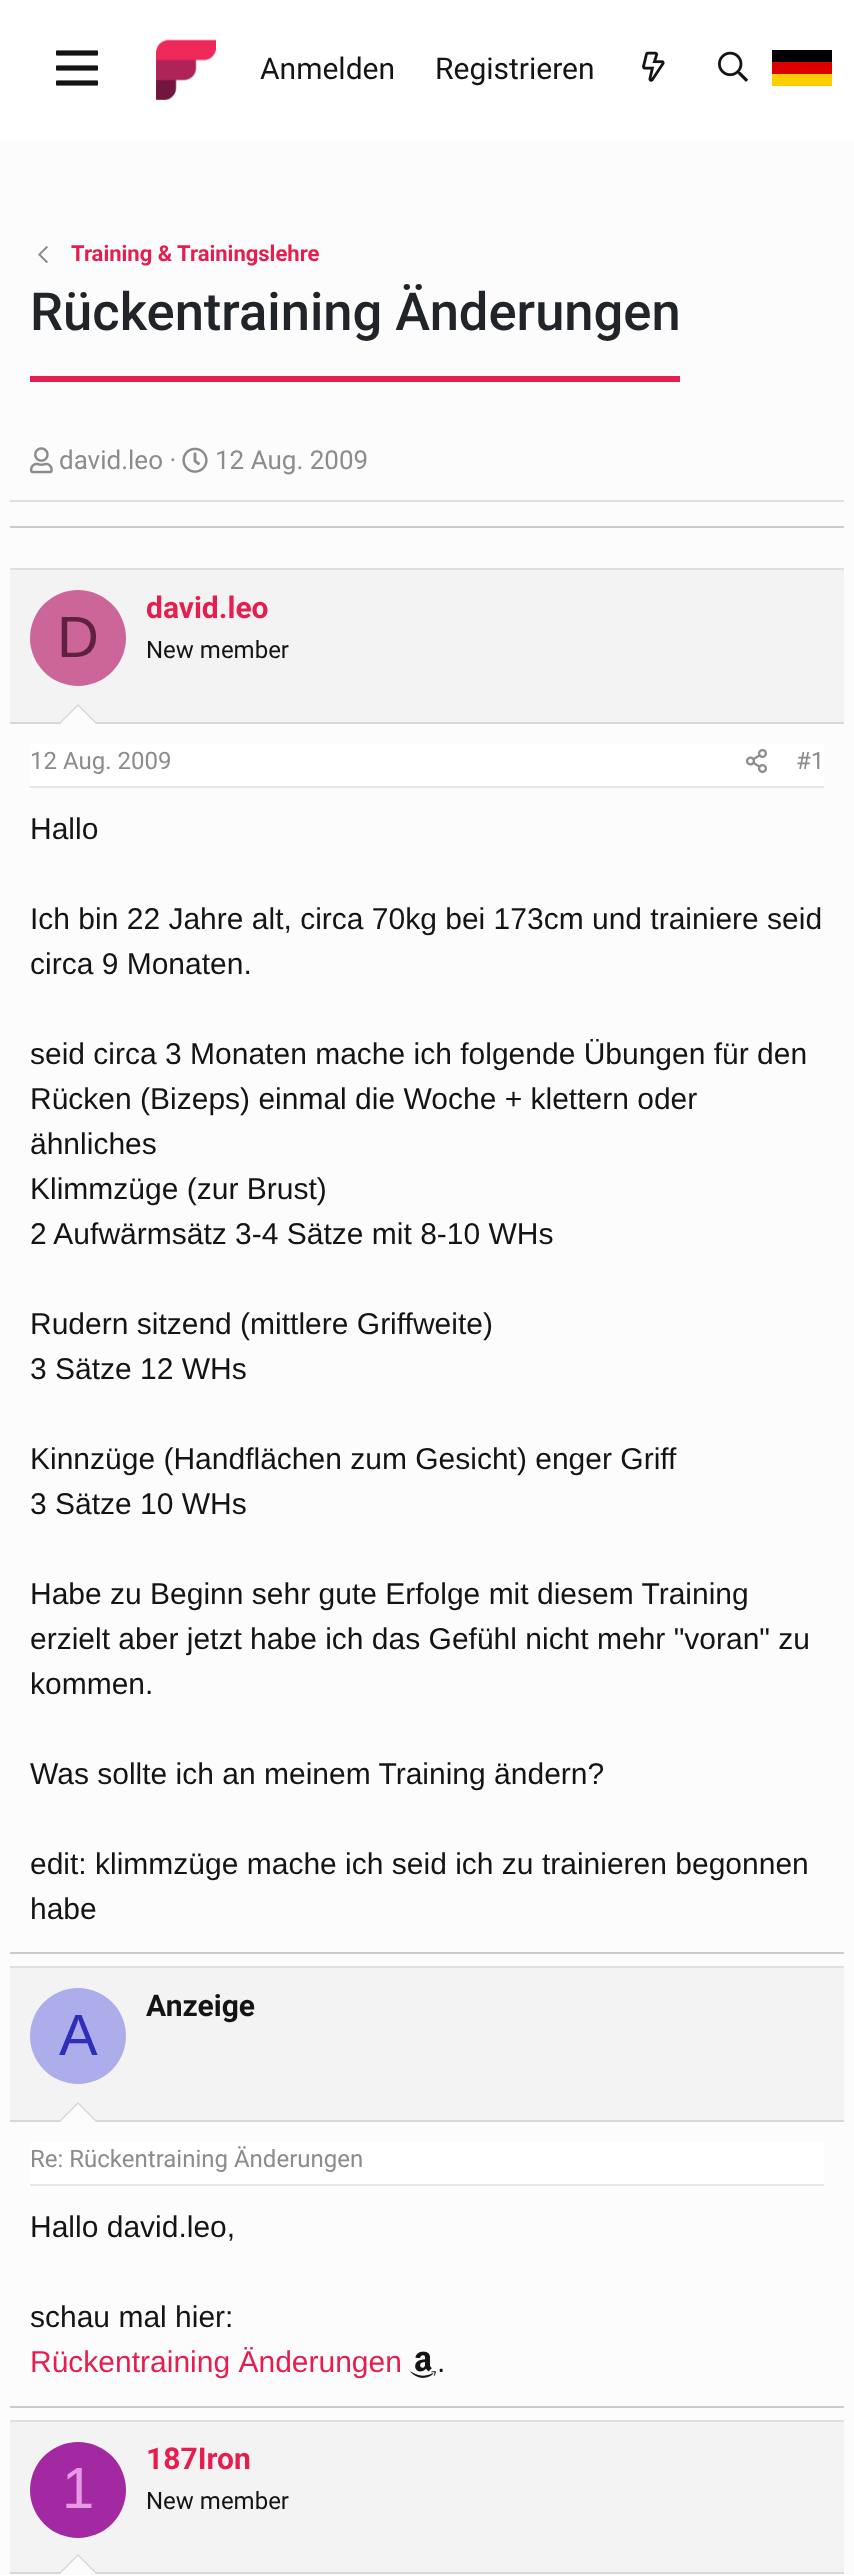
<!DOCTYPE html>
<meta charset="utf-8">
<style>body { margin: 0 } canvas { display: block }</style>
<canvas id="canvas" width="854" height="2575"></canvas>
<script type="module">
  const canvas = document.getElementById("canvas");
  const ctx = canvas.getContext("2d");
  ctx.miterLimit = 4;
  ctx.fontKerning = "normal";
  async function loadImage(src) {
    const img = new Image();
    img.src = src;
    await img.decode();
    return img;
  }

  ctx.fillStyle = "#fcfcfc";
  ctx.fillRect(0, 0, 854, 2575);
  ctx.fillStyle = "#ffffff";
  ctx.fillRect(0, 0, 854, 140);
  ctx.drawImage(await loadImage("img1.png"), 56, 50, 42, 36);
  ctx.drawImage(await loadImage("img2.png"), 156, 39, 60, 61);
  ctx.font = "30px Roboto";
  ctx.fillStyle = "#141414";
  ctx.fillText("Anmelden", 260, 79);
  ctx.fillText("Registrieren", 435, 79);
  ctx.drawImage(await loadImage("img3.png"), 642, 51, 23, 31);
  ctx.drawImage(await loadImage("img4.png"), 718, 51, 30, 31);
  ctx.fillStyle = "#000000";
  ctx.fillRect(772, 50, 60, 12);
  ctx.fillStyle = "#dd0000";
  ctx.fillRect(772, 62, 60, 12);
  ctx.fillStyle = "#ffce00";
  ctx.fillRect(772, 74, 60, 12);
  ctx.drawImage(await loadImage("img5.png"), 38, 246, 10, 18);
  ctx.font = "bold 22px Roboto";
  ctx.fillStyle = "#e61e50";
  ctx.fillText("Training & Trainingslehre", 71, 261);
  ctx.fillRect(30, 376, 650, 6);
  ctx.font = "500 52.5px Roboto";
  ctx.fillStyle = "#212529";
  ctx.fillText("Rückentraining Änderungen", 30, 330);
  ctx.drawImage(await loadImage("img6.png"), 30, 447, 23, 27);
  ctx.font = "26px Roboto";
  ctx.fillStyle = "#8c8c8c";
  ctx.fillText("david.leo ·", 59, 469);
  ctx.drawImage(await loadImage("img7.png"), 182, 447, 26, 26);
  ctx.fillText("12 Aug. 2009", 215, 469);
  ctx.fillStyle = "#dfdfdf";
  ctx.fillRect(10, 500, 834, 2);
  ctx.fillStyle = "#cbcbcb";
  ctx.fillRect(10, 526, 834, 2);
  ctx.fillStyle = "#dfdfdf";
  ctx.fillRect(10, 568, 834, 2);
  ctx.fillStyle = "#cbcbcb";
  ctx.fillRect(10, 1952, 834, 2);
  ctx.fillStyle = "#f3f3f3";
  ctx.fillRect(10, 570, 834, 152);
  ctx.fillStyle = "#d8d8d8";
  ctx.fillRect(10, 722, 834, 2);
  ctx.fillStyle = "#cc6699";
  ctx.beginPath();
  ctx.arc(78, 638, 48, 0, Math.PI * 2);
  ctx.fill();
  ctx.font = "58px Liberation Sans";
  ctx.fillStyle = "#602040";
  ctx.fillText("D", 57, 657);
  ctx.font = "bold 30px Roboto";
  ctx.fillStyle = "#e61e50";
  ctx.fillText("david.leo", 146, 618);
  ctx.font = "24px Roboto";
  ctx.fillStyle = "#141414";
  ctx.fillText("New member", 146, 658);
  ctx.fillStyle = "#d8d8d8";
  ctx.beginPath();
  ctx.moveTo(98, 724);
  ctx.lineTo(58, 724);
  ctx.lineTo(78, 704);
  ctx.closePath();
  ctx.fill();
  ctx.fillStyle = "#fcfcfc";
  ctx.beginPath();
  ctx.moveTo(96, 724);
  ctx.lineTo(60, 724);
  ctx.lineTo(78, 706);
  ctx.closePath();
  ctx.fill();
  ctx.fillStyle = "#ffffff";
  ctx.fillRect(30, 744, 794, 42);
  ctx.fillStyle = "#e7e7e7";
  ctx.fillRect(30, 786, 794, 2);
  ctx.fillStyle = "#8c8c8c";
  ctx.fillText("12 Aug. 2009", 30, 769);
  ctx.drawImage(await loadImage("img8.png"), 746, 749, 21, 24);
  ctx.fillText("#1", 796, 769);
  ctx.font = "30px Liberation Sans";
  ctx.fillStyle = "#141414";
  ctx.fillText("Hallo", 30, 839);
  ctx.fillText("Ich bin 22 Jahre alt, circa 70kg bei 173cm und trainiere seid", 30, 929);
  ctx.fillText("circa 9 Monaten.", 30, 974);
  ctx.fillText("seid circa 3 Monaten mache ich folgende Übungen für den", 30, 1064);
  ctx.fillText("Rücken (Bizeps) einmal die Woche + klettern oder", 30, 1109);
  ctx.fillText("ähnliches", 30, 1154);
  ctx.fillText("Klimmzüge (zur Brust)", 30, 1199);
  ctx.fillText("2 Aufwärmsätz 3-4 Sätze mit 8-10 WHs", 30, 1244);
  ctx.fillText("Rudern sitzend (mittlere Griffweite)", 30, 1334);
  ctx.fillText("3 Sätze 12 WHs", 30, 1379);
  ctx.fillText("Kinnzüge (Handflächen zum Gesicht) enger Griff", 30, 1469);
  ctx.fillText("3 Sätze 10 WHs", 30, 1514);
  ctx.fillText("Habe zu Beginn sehr gute Erfolge mit diesem Training", 30, 1604);
  ctx.fillText("erzielt aber jetzt habe ich das Gefühl nicht mehr \"voran\" zu", 30, 1649);
  ctx.fillText("kommen.", 30, 1694);
  ctx.fillText("Was sollte ich an meinem Training ändern?", 30, 1784);
  ctx.fillText("edit: klimmzüge mache ich seid ich zu trainieren begonnen", 30, 1874);
  ctx.fillText("habe", 30, 1919);
  ctx.fillStyle = "#dfdfdf";
  ctx.fillRect(10, 1966, 834, 2);
  ctx.fillStyle = "#cbcbcb";
  ctx.fillRect(10, 2406, 834, 2);
  ctx.fillStyle = "#f3f3f3";
  ctx.fillRect(10, 1968, 834, 152);
  ctx.fillStyle = "#d8d8d8";
  ctx.fillRect(10, 2120, 834, 2);
  ctx.font = "bold 30px Roboto";
  ctx.fillStyle = "#141414";
  ctx.fillText("Anzeige", 146, 2016);
  ctx.fillStyle = "#adadeb";
  ctx.beginPath();
  ctx.arc(78, 2036, 48, 0, Math.PI * 2);
  ctx.fill();
  ctx.font = "58px Liberation Sans";
  ctx.fillStyle = "#2e2eb8";
  ctx.fillText("A", 59, 2055);
  ctx.fillStyle = "#d8d8d8";
  ctx.beginPath();
  ctx.moveTo(98, 2122);
  ctx.lineTo(58, 2122);
  ctx.lineTo(78, 2102);
  ctx.closePath();
  ctx.fill();
  ctx.fillStyle = "#fcfcfc";
  ctx.beginPath();
  ctx.moveTo(96, 2122);
  ctx.lineTo(60, 2122);
  ctx.lineTo(78, 2104);
  ctx.closePath();
  ctx.fill();
  ctx.fillStyle = "#ffffff";
  ctx.fillRect(30, 2142, 794, 42);
  ctx.fillStyle = "#e7e7e7";
  ctx.fillRect(30, 2184, 794, 2);
  ctx.font = "24px Roboto";
  ctx.fillStyle = "#8c8c8c";
  ctx.fillText("Re: Rückentraining Änderungen", 30, 2167);
  ctx.font = "30px Liberation Sans";
  ctx.fillStyle = "#141414";
  ctx.fillText("Hallo david.leo,", 30, 2237);
  ctx.fillText("schau mal hier:", 30, 2327);
  ctx.fillStyle = "#e61e50";
  ctx.fillText("Rückentraining Änderungen", 30, 2372);
  ctx.drawImage(await loadImage("img9.png"), 410, 2351, 26, 27);
  ctx.fillStyle = "#141414";
  ctx.fillText(".", 437, 2372);
  ctx.fillStyle = "#dfdfdf";
  ctx.fillRect(10, 2420, 834, 2);
  ctx.fillStyle = "#f3f3f3";
  ctx.fillRect(10, 2422, 834, 150);
  ctx.fillStyle = "#d8d8d8";
  ctx.fillRect(10, 2572, 834, 2);
  ctx.fillStyle = "#a329a3";
  ctx.beginPath();
  ctx.arc(78, 2490, 48, 0, Math.PI * 2);
  ctx.fill();
  ctx.font = "58px Liberation Sans";
  ctx.fillStyle = "#e699e6";
  ctx.fillText("1", 62, 2508);
  ctx.font = "bold 30px Roboto";
  ctx.fillStyle = "#e61e50";
  ctx.fillText("187Iron", 146, 2469);
  ctx.font = "24px Roboto";
  ctx.fillStyle = "#141414";
  ctx.fillText("New member", 146, 2509);
  ctx.fillStyle = "#d8d8d8";
  ctx.beginPath();
  ctx.moveTo(98, 2574);
  ctx.lineTo(58, 2574);
  ctx.lineTo(78, 2554);
  ctx.closePath();
  ctx.fill();
  ctx.fillStyle = "#fcfcfc";
  ctx.beginPath();
  ctx.moveTo(96, 2574);
  ctx.lineTo(60, 2574);
  ctx.lineTo(78, 2556);
  ctx.closePath();
  ctx.fill();
</script>
